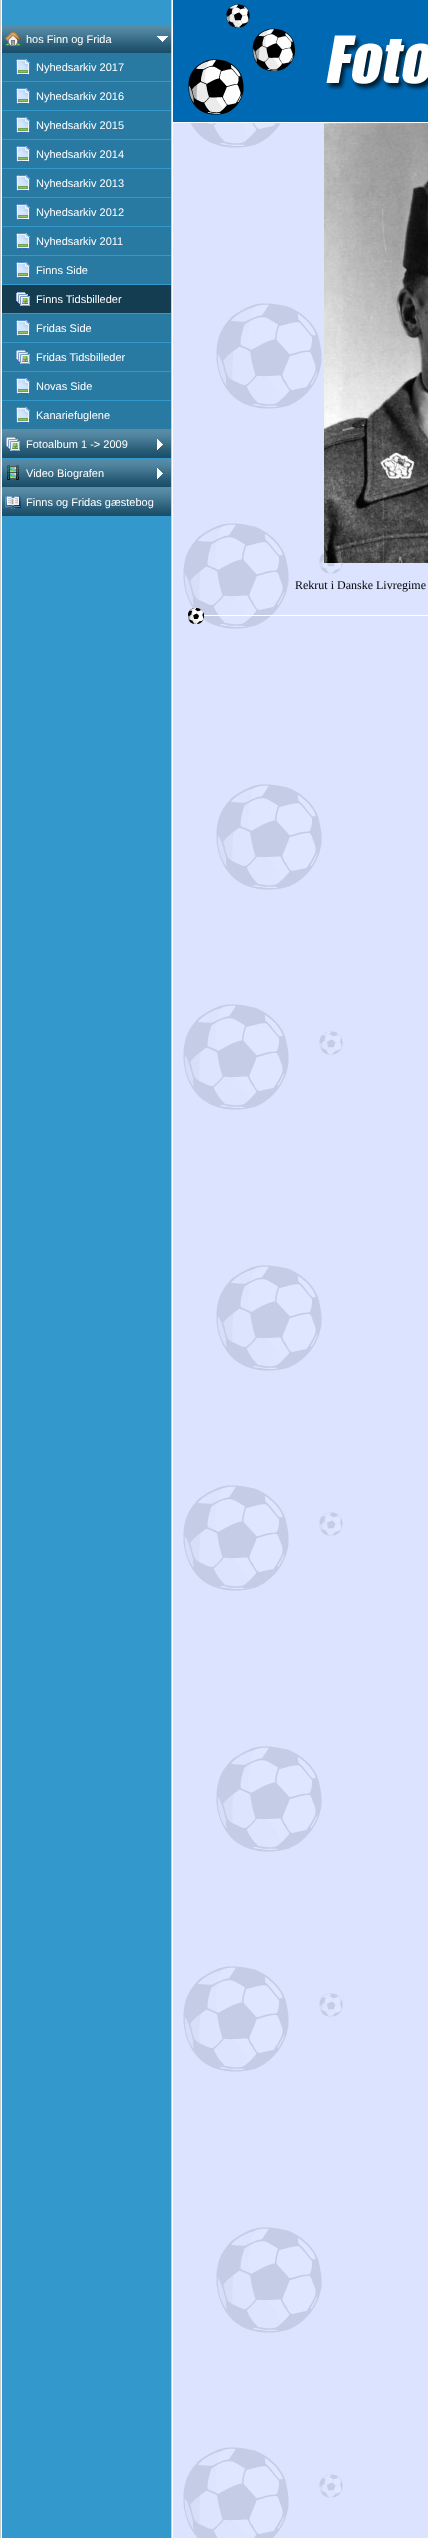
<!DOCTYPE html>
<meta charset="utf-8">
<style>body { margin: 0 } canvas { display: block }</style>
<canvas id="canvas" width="428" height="2538"></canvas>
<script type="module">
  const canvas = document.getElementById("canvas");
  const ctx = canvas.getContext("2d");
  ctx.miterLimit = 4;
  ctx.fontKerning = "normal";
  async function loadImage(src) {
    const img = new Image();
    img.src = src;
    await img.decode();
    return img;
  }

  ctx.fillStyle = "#ffffff";
  ctx.fillRect(0, 0, 428, 2538);
  ctx.fillStyle = "#cccccc";
  ctx.fillRect(0, 0, 1, 2538);
  ctx.fillStyle = "#3399cc";
  ctx.fillRect(2, 0, 169, 2538);
  ctx.drawImage(await loadImage("img1.png"), 2, 25, 169, 28);
  ctx.drawImage(await loadImage("img2.png"), 5, 32, 16, 14);
  ctx.drawImage(await loadImage("img3.png"), 157, 36, 11, 6);
  ctx.font = "11px Liberation Sans";
  ctx.fillStyle = "#ffffff";
  ctx.fillText("hos Finn og Frida", 26, 43);
  ctx.fillStyle = "#297aa3";
  ctx.fillRect(2, 53, 169, 28);
  ctx.drawImage(await loadImage("img4.png"), 16, 59, 14, 16);
  ctx.fillStyle = "#ffffff";
  ctx.fillText("Nyhedsarkiv 2017", 36, 71);
  ctx.fillStyle = "#297aa3";
  ctx.fillRect(2, 82, 169, 28);
  ctx.drawImage(await loadImage("img4.png"), 16, 88, 14, 16);
  ctx.fillStyle = "#ffffff";
  ctx.fillText("Nyhedsarkiv 2016", 36, 100);
  ctx.fillStyle = "#297aa3";
  ctx.fillRect(2, 111, 169, 28);
  ctx.drawImage(await loadImage("img4.png"), 16, 117, 14, 16);
  ctx.fillStyle = "#ffffff";
  ctx.fillText("Nyhedsarkiv 2015", 36, 129);
  ctx.fillStyle = "#297aa3";
  ctx.fillRect(2, 140, 169, 28);
  ctx.drawImage(await loadImage("img4.png"), 16, 146, 14, 16);
  ctx.fillStyle = "#ffffff";
  ctx.fillText("Nyhedsarkiv 2014", 36, 158);
  ctx.fillStyle = "#297aa3";
  ctx.fillRect(2, 169, 169, 28);
  ctx.drawImage(await loadImage("img4.png"), 16, 175, 14, 16);
  ctx.fillStyle = "#ffffff";
  ctx.fillText("Nyhedsarkiv 2013", 36, 187);
  ctx.fillStyle = "#297aa3";
  ctx.fillRect(2, 198, 169, 28);
  ctx.drawImage(await loadImage("img4.png"), 16, 204, 14, 16);
  ctx.fillStyle = "#ffffff";
  ctx.fillText("Nyhedsarkiv 2012", 36, 216);
  ctx.fillStyle = "#297aa3";
  ctx.fillRect(2, 227, 169, 28);
  ctx.drawImage(await loadImage("img4.png"), 16, 233, 14, 16);
  ctx.fillStyle = "#ffffff";
  ctx.fillText("Nyhedsarkiv 2011", 36, 245);
  ctx.fillStyle = "#297aa3";
  ctx.fillRect(2, 256, 169, 28);
  ctx.drawImage(await loadImage("img4.png"), 16, 262, 14, 16);
  ctx.fillStyle = "#ffffff";
  ctx.fillText("Finns Side", 36, 274);
  ctx.fillStyle = "#143d52";
  ctx.fillRect(2, 285, 169, 28);
  ctx.drawImage(await loadImage("img5.png"), 16, 292, 14, 14);
  ctx.fillStyle = "#ffffff";
  ctx.fillText("Finns Tidsbilleder", 36, 303);
  ctx.fillStyle = "#297aa3";
  ctx.fillRect(2, 314, 169, 28);
  ctx.drawImage(await loadImage("img4.png"), 16, 320, 14, 16);
  ctx.fillStyle = "#ffffff";
  ctx.fillText("Fridas Side", 36, 332);
  ctx.fillStyle = "#297aa3";
  ctx.fillRect(2, 343, 169, 28);
  ctx.drawImage(await loadImage("img6.png"), 16, 350, 14, 14);
  ctx.fillStyle = "#ffffff";
  ctx.fillText("Fridas Tidsbilleder", 36, 361);
  ctx.fillStyle = "#297aa3";
  ctx.fillRect(2, 372, 169, 28);
  ctx.drawImage(await loadImage("img4.png"), 16, 378, 14, 16);
  ctx.fillStyle = "#ffffff";
  ctx.fillText("Novas Side", 36, 390);
  ctx.fillStyle = "#297aa3";
  ctx.fillRect(2, 401, 169, 28);
  ctx.drawImage(await loadImage("img4.png"), 16, 407, 14, 16);
  ctx.fillStyle = "#ffffff";
  ctx.fillText("Kanariefuglene", 36, 419);
  ctx.drawImage(await loadImage("img1.png"), 2, 430, 169, 28);
  ctx.drawImage(await loadImage("img7.png"), 6, 437, 14, 14);
  ctx.drawImage(await loadImage("img8.png"), 157, 439, 6, 11);
  ctx.fillText("Fotoalbum 1 -> 2009", 26, 448);
  ctx.drawImage(await loadImage("img1.png"), 2, 459, 169, 28);
  ctx.drawImage(await loadImage("img9.png"), 7, 465, 12, 15);
  ctx.drawImage(await loadImage("img8.png"), 157, 468, 6, 11);
  ctx.fillText("Video Biografen", 26, 477);
  ctx.drawImage(await loadImage("img1.png"), 2, 488, 169, 28);
  ctx.drawImage(await loadImage("img10.png"), 5, 496, 16, 13);
  ctx.fillText("Finns og Fridas gæstebog", 26, 506);
  ctx.fillStyle = "#cccccc";
  ctx.fillRect(171, 0, 1, 2538);
  ctx.fillStyle = "#dbe3ff";
  ctx.fillRect(173, 123, 255, 2415);
  ctx.drawImage(await loadImage("img11.png"), 183, 123, 160, 2415);
  ctx.drawImage(await loadImage("img12.png"), 173, 0, 255, 122);
  ctx.drawImage(await loadImage("img13.png"), 324, 123, 104, 440);
  ctx.font = "12px Liberation Serif";
  ctx.fillStyle = "#000000";
  ctx.fillText("Rekrut i Danske Livregime", 295, 589);
  ctx.drawImage(await loadImage("img14.png"), 188, 608, 16, 16);
  ctx.fillStyle = "#ffffff";
  ctx.fillRect(204, 615, 224, 1);
</script>
